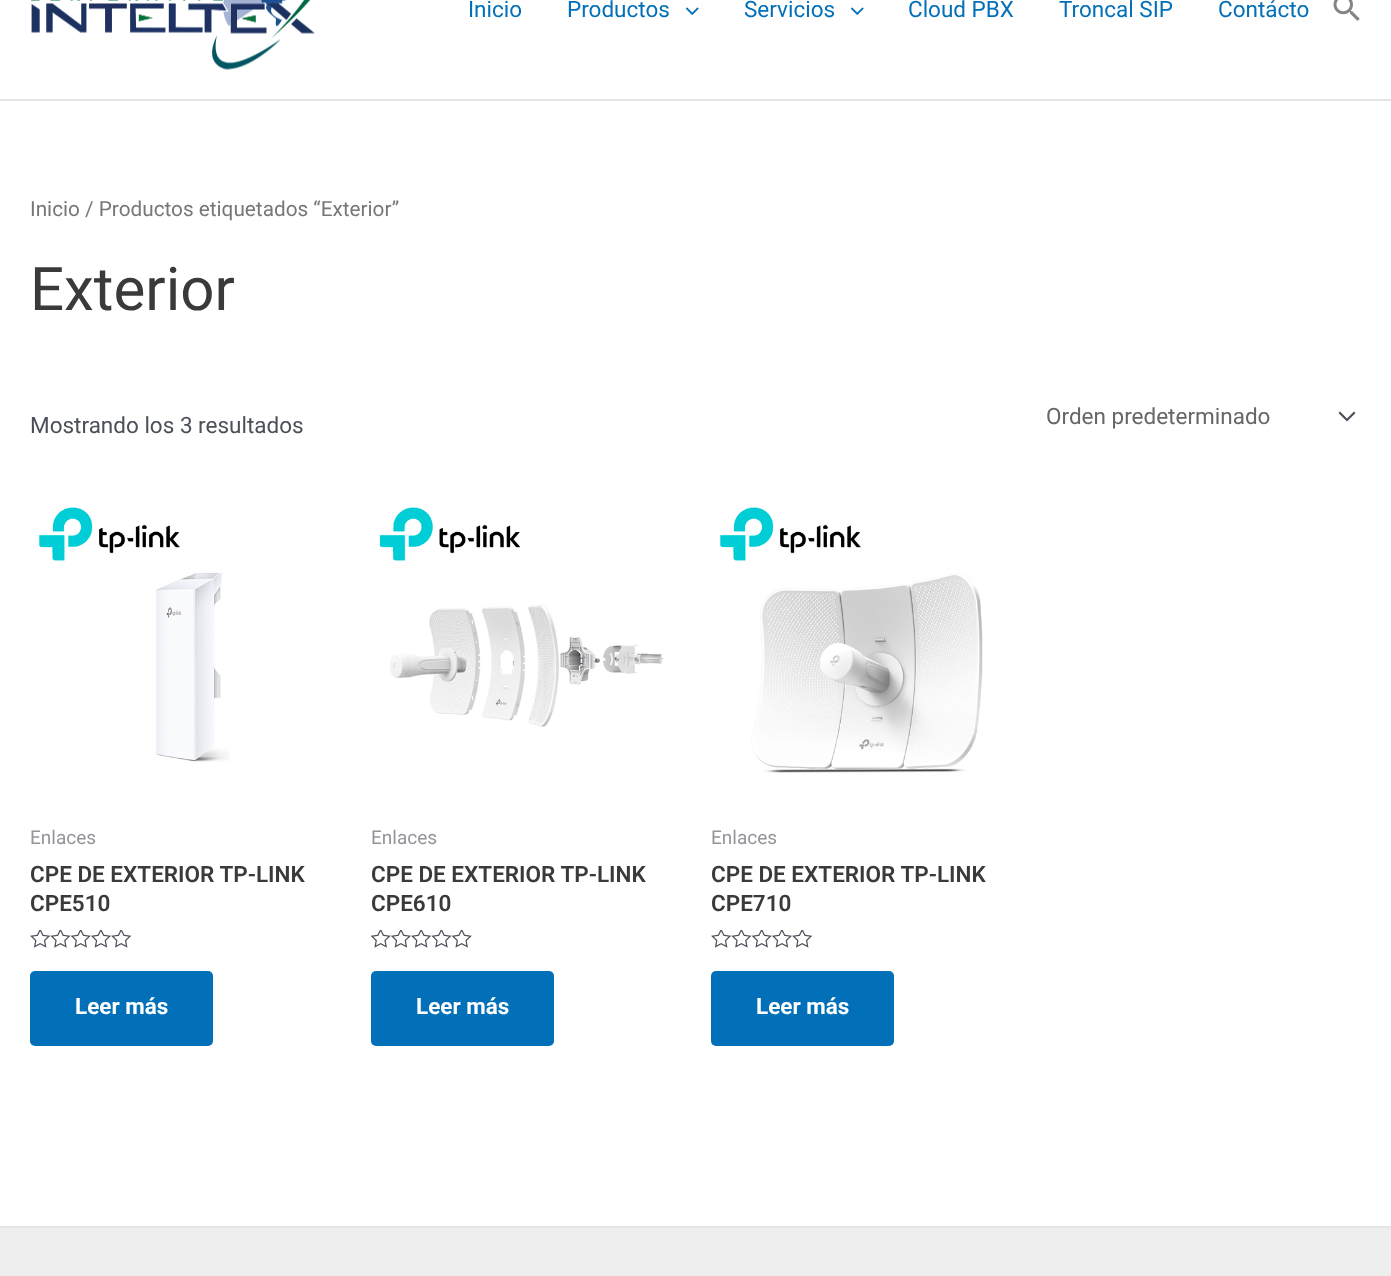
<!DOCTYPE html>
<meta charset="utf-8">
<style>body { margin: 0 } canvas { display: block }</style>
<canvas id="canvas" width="1391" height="1276"></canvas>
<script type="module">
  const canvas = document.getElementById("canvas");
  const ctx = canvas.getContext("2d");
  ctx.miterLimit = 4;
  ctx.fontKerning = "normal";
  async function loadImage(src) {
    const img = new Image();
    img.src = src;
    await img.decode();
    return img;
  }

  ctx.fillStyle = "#ffffff";
  ctx.fillRect(0, 0, 1391, 1276);
  ctx.fillStyle = "#e5e5e5";
  ctx.fillRect(0, 99, 1391, 2);
  ctx.drawImage(await loadImage("img1.png"), 31, 0, 284, 70);
  ctx.font = "22.5px Roboto";
  ctx.fillStyle = "#0170b9";
  ctx.fillText("Inicio", 468, 17);
  ctx.fillText("Productos", 567, 17);
  ctx.drawImage(await loadImage("img2.png"), 686, 7, 13, 8);
  ctx.fillText("Servicios", 744, 17);
  ctx.drawImage(await loadImage("img2.png"), 851, 7, 13, 8);
  ctx.fillText("Cloud PBX", 908, 17);
  ctx.fillText("Troncal SIP", 1059, 17);
  ctx.fillText("Contácto", 1218, 17);
  ctx.drawImage(await loadImage("img3.png"), 1333, 0, 27, 21);
  ctx.font = "20.75px Roboto";
  ctx.fillStyle = "#777777";
  ctx.fillText("Inicio / Productos etiquetados “Exterior”", 30, 216);
  ctx.font = "60px Roboto";
  ctx.fillStyle = "#3a3a3a";
  ctx.fillText("Exterior", 30, 310);
  ctx.font = "22.5px Roboto";
  ctx.fillStyle = "#4b4f58";
  ctx.fillText("Mostrando los 3 resultados", 30, 433);
  ctx.beginPath();
  ctx.moveTo(1338.5, 413);
  ctx.lineTo(1347, 421.5);
  ctx.lineTo(1355.5, 413);
  ctx.lineTo(1354, 411.5);
  ctx.lineTo(1347, 418.5);
  ctx.lineTo(1340, 411.5);
  ctx.closePath();
  ctx.fill();
  ctx.fillStyle = "#666666";
  ctx.fillText("Orden predeterminado", 1046, 424);
  ctx.drawImage(await loadImage("img4.png"), 39, 507, 191, 255);
  ctx.font = "19px Roboto";
  ctx.fillStyle = "#93959b";
  ctx.fillText("Enlaces", 30, 844);
  ctx.font = "600 22.5px Roboto";
  ctx.fillStyle = "#3a3a3a";
  ctx.fillText("CPE DE EXTERIOR TP-LINK", 30, 882);
  ctx.fillText("CPE510", 30, 911);
  ctx.drawImage(await loadImage("img5.png"), 30, 930, 102, 18);
  ctx.fillStyle = "#0170b9";
  ctx.beginPath();
  ctx.roundRect(30, 971, 183, 75, 5);
  ctx.fill();
  ctx.font = "bold 22.5px Roboto";
  ctx.fillStyle = "#ffffff";
  ctx.fillText("Leer más", 75, 1014);
  ctx.drawImage(await loadImage("img6.png"), 379, 507, 285, 220);
  ctx.font = "19px Roboto";
  ctx.fillStyle = "#93959b";
  ctx.fillText("Enlaces", 371, 844);
  ctx.font = "600 22.5px Roboto";
  ctx.fillStyle = "#3a3a3a";
  ctx.fillText("CPE DE EXTERIOR TP-LINK", 371, 882);
  ctx.fillText("CPE610", 371, 911);
  ctx.drawImage(await loadImage("img7.png"), 371, 930, 101, 18);
  ctx.fillStyle = "#0170b9";
  ctx.beginPath();
  ctx.roundRect(371, 971, 183, 75, 5);
  ctx.fill();
  ctx.font = "bold 22.5px Roboto";
  ctx.fillStyle = "#ffffff";
  ctx.fillText("Leer más", 416, 1014);
  ctx.drawImage(await loadImage("img8.png"), 720, 507, 263, 266);
  ctx.font = "19px Roboto";
  ctx.fillStyle = "#93959b";
  ctx.fillText("Enlaces", 711, 844);
  ctx.font = "600 22.5px Roboto";
  ctx.fillStyle = "#3a3a3a";
  ctx.fillText("CPE DE EXTERIOR TP-LINK", 711, 882);
  ctx.fillText("CPE710", 711, 911);
  ctx.drawImage(await loadImage("img5.png"), 711, 930, 102, 18);
  ctx.fillStyle = "#0170b9";
  ctx.beginPath();
  ctx.roundRect(711, 971, 183, 75, 5);
  ctx.fill();
  ctx.font = "bold 22.5px Roboto";
  ctx.fillStyle = "#ffffff";
  ctx.fillText("Leer más", 756, 1014);
  ctx.fillStyle = "#eeeeee";
  ctx.fillRect(0, 1228, 1391, 48);
  ctx.fillStyle = "#e5e5e5";
  ctx.fillRect(0, 1226, 1391, 2);
</script>
